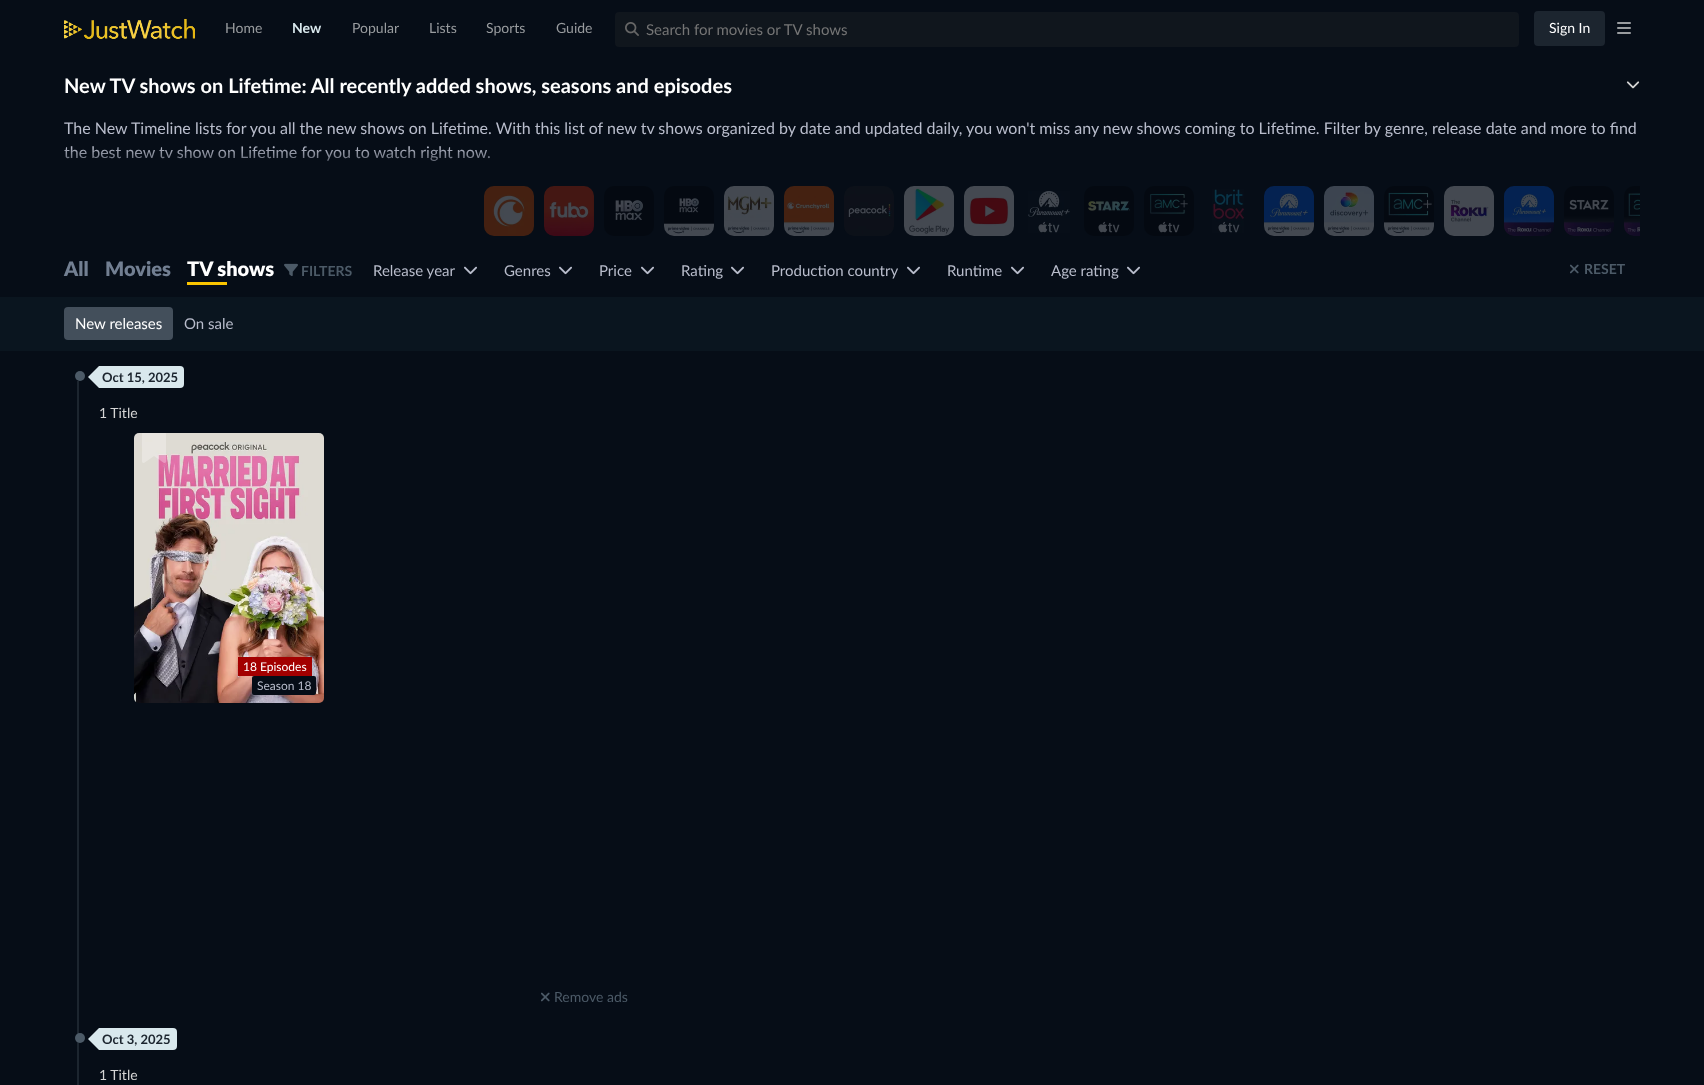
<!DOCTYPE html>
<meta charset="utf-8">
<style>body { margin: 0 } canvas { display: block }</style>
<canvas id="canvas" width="1704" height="1085"></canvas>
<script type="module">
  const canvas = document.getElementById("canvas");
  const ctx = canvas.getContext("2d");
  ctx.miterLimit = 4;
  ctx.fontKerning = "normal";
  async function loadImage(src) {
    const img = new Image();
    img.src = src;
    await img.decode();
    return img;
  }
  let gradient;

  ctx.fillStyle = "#060d17";
  ctx.fillRect(0, 0, 1704, 1085);
  ctx.drawImage(await loadImage("img1.png"), 64, 18, 131, 21);
  ctx.font = "14px Lato";
  ctx.fillStyle = "#999c9f";
  ctx.fillText("Home", 225, 33);
  ctx.font = "bold 14px Lato";
  ctx.fillStyle = "#d9e8ed";
  ctx.fillText("New", 292, 33);
  ctx.font = "14px Lato";
  ctx.fillStyle = "#999c9f";
  ctx.fillText("Popular", 352, 33);
  ctx.fillText("Lists", 429, 33);
  ctx.fillText("Sports", 486, 33);
  ctx.fillText("Guide", 556, 33);
  ctx.fillStyle = "#10161d";
  ctx.beginPath();
  ctx.roundRect(615, 12, 904, 35, 4);
  ctx.fill();
  ctx.drawImage(await loadImage("img2.png"), 625, 22, 14, 14);
  ctx.font = "15px Lato";
  ctx.fillStyle = "#757575";
  ctx.fillText("Search for movies or TV shows", 646, 35);
  ctx.fillStyle = "#1c252f";
  ctx.beginPath();
  ctx.roundRect(1534, 11, 71, 35, 4);
  ctx.fill();
  ctx.font = "14px Lato";
  ctx.fillStyle = "#ffffff";
  ctx.fillText("Sign In", 1549, 33);
  ctx.drawImage(await loadImage("img3.png"), 1617, 22, 14, 12);
  ctx.font = "bold 20px Lato";
  ctx.fillText("New TV shows on Lifetime: All recently added shows, seasons and episodes", 64, 93);
  ctx.font = "16px Lato";
  ctx.fillStyle = "#b9bdcc";
  ctx.fillText("The New Timeline lists for you all the new shows on Lifetime. With this list of new tv shows organized by date and updated daily, you won't miss any new shows coming to Lifetime. Filter by genre, release date and more to find", 64, 134);
  ctx.fillText("the best new tv show on Lifetime for you to watch right now.", 64, 158);
  ctx.drawImage(await loadImage("img4.png"), 1626, 81, 14, 8);
  gradient = ctx.createLinearGradient(852, 146, 852, 176);
  gradient.addColorStop(0, "rgba(6, 13, 23, 0)");
  gradient.addColorStop(1, "#060d17");
  ctx.fillStyle = gradient;
  ctx.fillRect(64, 147, 426, 14);
  ctx.drawImage(await loadImage("img5.png"), 484, 186, 50, 50);
  ctx.drawImage(await loadImage("img6.png"), 544, 186, 50, 50);
  ctx.drawImage(await loadImage("img7.png"), 604, 186, 50, 50);
  ctx.drawImage(await loadImage("img8.png"), 664, 186, 50, 50);
  ctx.drawImage(await loadImage("img9.png"), 724, 186, 50, 50);
  ctx.drawImage(await loadImage("img10.png"), 784, 186, 50, 50);
  ctx.drawImage(await loadImage("img11.png"), 844, 186, 50, 50);
  ctx.drawImage(await loadImage("img12.png"), 904, 186, 50, 50);
  ctx.drawImage(await loadImage("img13.png"), 964, 186, 50, 50);
  ctx.drawImage(await loadImage("img14.png"), 1028, 191, 42, 42);
  ctx.drawImage(await loadImage("img15.png"), 1084, 186, 50, 50);
  ctx.drawImage(await loadImage("img16.png"), 1144, 186, 50, 50);
  ctx.drawImage(await loadImage("img17.png"), 1212, 189, 32, 44);
  ctx.drawImage(await loadImage("img18.png"), 1264, 186, 50, 50);
  ctx.drawImage(await loadImage("img19.png"), 1324, 186, 50, 50);
  ctx.drawImage(await loadImage("img20.png"), 1384, 186, 50, 50);
  ctx.drawImage(await loadImage("img21.png"), 1444, 186, 50, 50);
  ctx.drawImage(await loadImage("img22.png"), 1504, 186, 50, 50);
  ctx.drawImage(await loadImage("img23.png"), 1564, 186, 50, 50);
  ctx.drawImage(await loadImage("img24.png"), 1624, 186, 16, 50);
  ctx.font = "900 20px Lato";
  ctx.fillStyle = "#727f92";
  ctx.fillText("All", 64, 276);
  ctx.fillText("Movies", 105, 276);
  ctx.fillStyle = "#ffffff";
  ctx.fillText("TV shows", 187, 276);
  ctx.fillStyle = "#fbc500";
  ctx.fillRect(187, 282, 40, 3);
  ctx.drawImage(await loadImage("img25.png"), 284, 263, 14, 13);
  ctx.font = "bold 14px Lato";
  ctx.fillStyle = "#4c5a67";
  ctx.fillText("FILTERS", 301, 276);
  ctx.font = "15px Lato";
  ctx.fillStyle = "#b9bdcc";
  ctx.fillText("Release year", 373, 276);
  ctx.drawImage(await loadImage("img26.png"), 464, 266, 13, 9);
  ctx.fillText("Genres", 504, 276);
  ctx.drawImage(await loadImage("img26.png"), 559, 266, 13, 9);
  ctx.fillText("Price", 599, 276);
  ctx.drawImage(await loadImage("img26.png"), 641, 266, 13, 9);
  ctx.fillText("Rating", 681, 276);
  ctx.drawImage(await loadImage("img26.png"), 731, 266, 13, 9);
  ctx.fillText("Production country", 771, 276);
  ctx.drawImage(await loadImage("img26.png"), 907, 266, 13, 9);
  ctx.fillText("Runtime", 947, 276);
  ctx.drawImage(await loadImage("img26.png"), 1011, 266, 13, 9);
  ctx.fillText("Age rating", 1051, 276);
  ctx.drawImage(await loadImage("img26.png"), 1127, 266, 13, 9);
  ctx.drawImage(await loadImage("img27.png"), 1570, 264, 9, 10);
  ctx.font = "bold 14px Lato";
  ctx.fillStyle = "#4c5a67";
  ctx.fillText("RESET", 1584, 274);
  ctx.fillStyle = "#0a151f";
  ctx.fillRect(0, 297, 1704, 54);
  ctx.fillStyle = "#434f5b";
  ctx.beginPath();
  ctx.roundRect(64, 307, 109, 33, 4);
  ctx.fill();
  ctx.font = "15px Lato";
  ctx.fillStyle = "#ffffff";
  ctx.fillText("New releases", 75, 329);
  ctx.fillStyle = "#b9bdcc";
  ctx.fillText("On sale", 184, 329);
  ctx.fillStyle = "#1c252f";
  ctx.fillRect(77, 381, 2, 704);
  ctx.fillStyle = "#4c5a67";
  ctx.beginPath();
  ctx.arc(80, 376, 5, 0, Math.PI * 2);
  ctx.fill();
  ctx.fillStyle = "#d9e8ed";
  ctx.beginPath();
  ctx.roundRect(99, 366, 85, 22, [0, 4, 4, 0]);
  ctx.fill();
  ctx.beginPath();
  ctx.moveTo(99, 366);
  ctx.lineTo(99, 388);
  ctx.lineTo(88, 377);
  ctx.closePath();
  ctx.fill();
  ctx.font = "bold 13px Lato";
  ctx.fillStyle = "#1c252f";
  ctx.fillText("Oct 15, 2025", 102, 382);
  ctx.font = "14px Lato";
  ctx.fillStyle = "#d5d5d5";
  ctx.fillText("1 Title", 99, 418);
  ctx.drawImage(await loadImage("img28.png"), 134, 433, 190, 270);
  ctx.drawImage(await loadImage("img29.png"), 142, 433, 24, 30);
  ctx.fillStyle = "#a30000";
  ctx.fillRect(238, 657, 74, 19);
  ctx.font = "12px Lato";
  ctx.fillStyle = "#ffffff";
  ctx.fillText("18 Episodes", 243, 671);
  ctx.fillStyle = "#060d17";
  ctx.beginPath();
  ctx.roundRect(252, 676, 64, 19, 2);
  ctx.fill();
  ctx.fillStyle = "#b9bdcc";
  ctx.fillText("Season 18", 257, 690);
  ctx.drawImage(await loadImage("img27.png"), 541, 992, 9, 10);
  ctx.font = "14px Lato";
  ctx.fillStyle = "#4c5a67";
  ctx.fillText("Remove ads", 554, 1002);
  ctx.beginPath();
  ctx.arc(80, 1038, 5, 0, Math.PI * 2);
  ctx.fill();
  ctx.fillStyle = "#d9e8ed";
  ctx.beginPath();
  ctx.roundRect(99, 1028, 78, 22, [0, 4, 4, 0]);
  ctx.fill();
  ctx.beginPath();
  ctx.moveTo(99, 1028);
  ctx.lineTo(99, 1050);
  ctx.lineTo(88, 1039);
  ctx.closePath();
  ctx.fill();
  ctx.font = "bold 13px Lato";
  ctx.fillStyle = "#1c252f";
  ctx.fillText("Oct 3, 2025", 102, 1044);
  ctx.font = "14px Lato";
  ctx.fillStyle = "#d5d5d5";
  ctx.fillText("1 Title", 99, 1080);
</script>
